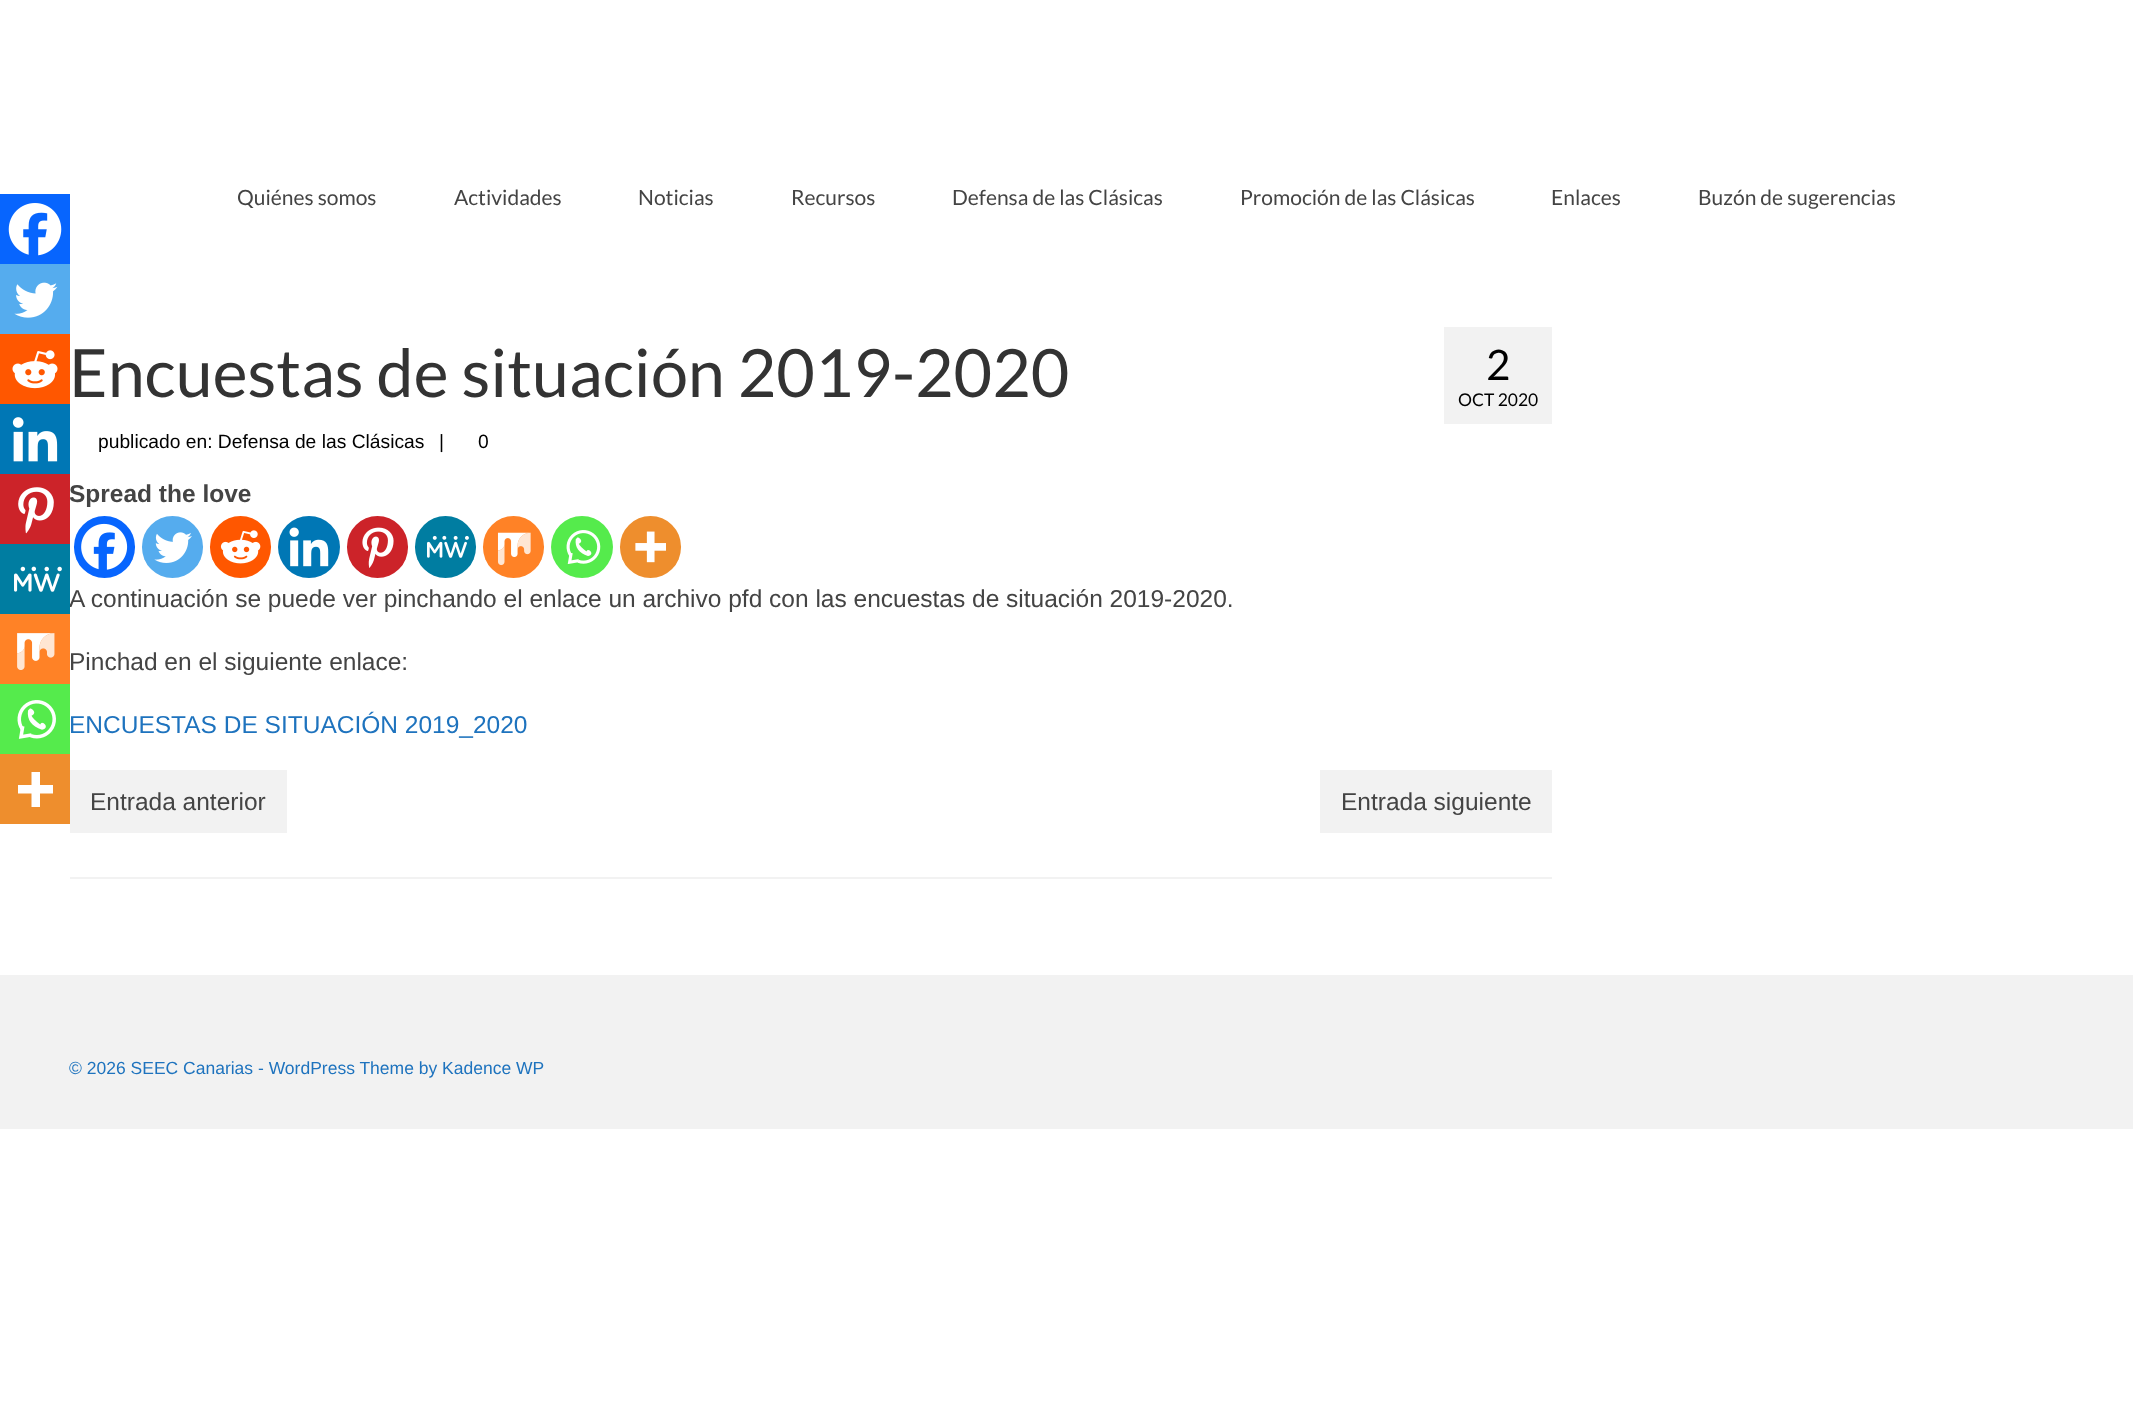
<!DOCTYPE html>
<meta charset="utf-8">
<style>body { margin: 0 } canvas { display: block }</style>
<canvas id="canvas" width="2133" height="1424"></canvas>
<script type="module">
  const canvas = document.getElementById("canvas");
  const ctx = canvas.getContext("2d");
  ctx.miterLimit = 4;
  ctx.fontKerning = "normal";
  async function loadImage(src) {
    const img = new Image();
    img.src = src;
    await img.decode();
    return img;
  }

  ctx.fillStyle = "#ffffff";
  ctx.fillRect(0, 0, 2133, 1424);
  ctx.font = "21px Lato";
  ctx.fillStyle = "#444444";
  ctx.fillText("Quiénes somos", 237, 205);
  ctx.fillText("Actividades", 454, 205);
  ctx.fillText("Noticias", 638, 205);
  ctx.fillText("Recursos", 791, 205);
  ctx.fillText("Defensa de las Clásicas", 952, 205);
  ctx.fillText("Promoción de las Clásicas", 1240, 205);
  ctx.fillText("Enlaces", 1551, 205);
  ctx.fillText("Buzón de sugerencias", 1698, 205);
  ctx.font = "66.5px Lato";
  ctx.fillStyle = "#333333";
  ctx.fillText("Encuestas de situación 2019-2020", 69, 397);
  ctx.font = "19.25px Liberation Sans";
  ctx.fillStyle = "#000000";
  ctx.fillText("publicado en: Defensa de las Clásicas", 98, 448);
  ctx.fillText("|", 439, 448);
  ctx.fillText("0", 478, 448);
  ctx.fillStyle = "#f2f2f2";
  ctx.fillRect(1444, 327, 108, 97);
  ctx.font = "42px Lato";
  ctx.fillStyle = "#000000";
  ctx.fillText("2", 1486, 380);
  ctx.font = "17.5px Lato";
  ctx.fillText("OCT 2020", 1458, 406);
  ctx.fillStyle = "#0765fe";
  ctx.fillRect(0, 194, 70, 70);
  ctx.drawImage(await loadImage("img1.png"), 8, 203, 54, 53);
  ctx.fillStyle = "#55acee";
  ctx.fillRect(0, 264, 70, 70);
  ctx.drawImage(await loadImage("img2.png"), 14, 282, 44, 36);
  ctx.fillStyle = "#ff5700";
  ctx.fillRect(0, 334, 70, 70);
  ctx.drawImage(await loadImage("img3.png"), 12, 350, 46, 39);
  ctx.fillStyle = "#0077b5";
  ctx.fillRect(0, 404, 70, 70);
  ctx.drawImage(await loadImage("img4.png"), 12, 417, 46, 45);
  ctx.font = "bold 24.5px Liberation Sans";
  ctx.fillStyle = "#444444";
  ctx.fillText("Spread the love", 69, 502);
  ctx.fillStyle = "#cc2329";
  ctx.fillRect(0, 474, 70, 70);
  ctx.drawImage(await loadImage("img5.png"), 18, 487, 36, 47);
  ctx.font = "24.5px Liberation Sans";
  ctx.fillStyle = "#444444";
  ctx.fillText("A continuación se puede ver pinchando el enlace un archivo pfd con las encuestas de situación 2019-2020.", 69, 607);
  ctx.fillStyle = "#007da1";
  ctx.fillRect(0, 544, 70, 70);
  ctx.drawImage(await loadImage("img6.png"), 14, 566, 48, 26);
  ctx.fillStyle = "#ff8226";
  ctx.fillRect(0, 614, 70, 70);
  ctx.drawImage(await loadImage("img7.png"), 17, 633, 38, 37);
  ctx.fillStyle = "#55eb4c";
  ctx.fillRect(0, 684, 70, 70);
  ctx.drawImage(await loadImage("img8.png"), 17, 700, 39, 39);
  ctx.fillStyle = "#ee8e2d";
  ctx.fillRect(0, 754, 70, 70);
  ctx.fillStyle = "#ffffff";
  ctx.beginPath();
  ctx.moveTo(40, 785);
  ctx.lineTo(40, 772);
  ctx.lineTo(31.5, 772);
  ctx.lineTo(31.5, 785);
  ctx.lineTo(18, 785);
  ctx.lineTo(18, 793.5);
  ctx.lineTo(31.5, 793.5);
  ctx.lineTo(31.5, 807);
  ctx.lineTo(40, 807);
  ctx.lineTo(40, 793.5);
  ctx.lineTo(53, 793.5);
  ctx.lineTo(53, 785);
  ctx.closePath();
  ctx.fill("evenodd");
  ctx.fillStyle = "#0765fe";
  ctx.beginPath();
  ctx.roundRect(74, 516, 61, 62, 30.5);
  ctx.fill();
  ctx.drawImage(await loadImage("img9.png"), 81, 523, 47, 47);
  ctx.fillStyle = "#55acee";
  ctx.beginPath();
  ctx.roundRect(142, 516, 61, 62, 30.5);
  ctx.fill();
  ctx.drawImage(await loadImage("img10.png"), 154, 532, 38, 31);
  ctx.fillStyle = "#ff5700";
  ctx.beginPath();
  ctx.roundRect(210, 516, 61, 62, 30.5);
  ctx.fill();
  ctx.drawImage(await loadImage("img11.png"), 220, 530, 41, 34);
  ctx.fillStyle = "#0077b5";
  ctx.beginPath();
  ctx.arc(309, 547, 31, 0, Math.PI * 2);
  ctx.fill();
  ctx.drawImage(await loadImage("img12.png"), 289, 527, 40, 40);
  ctx.fillStyle = "#cc2329";
  ctx.beginPath();
  ctx.roundRect(347, 516, 61, 62, 30.5);
  ctx.fill();
  ctx.drawImage(await loadImage("img13.png"), 362, 527, 32, 41);
  ctx.fillStyle = "#007da1";
  ctx.beginPath();
  ctx.roundRect(415, 516, 61, 62, 30.5);
  ctx.fill();
  ctx.drawImage(await loadImage("img14.png"), 427, 535, 42, 23);
  ctx.fillStyle = "#ff8226";
  ctx.beginPath();
  ctx.roundRect(483, 516, 61, 62, 30.5);
  ctx.fill();
  ctx.drawImage(await loadImage("img15.png"), 497, 532, 34, 34);
  ctx.fillStyle = "#55eb4c";
  ctx.beginPath();
  ctx.arc(582, 547, 31, 0, Math.PI * 2);
  ctx.fill();
  ctx.drawImage(await loadImage("img16.png"), 566, 530, 35, 34);
  ctx.fillStyle = "#ee8e2d";
  ctx.beginPath();
  ctx.roundRect(620, 516, 61, 62, 30.5);
  ctx.fill();
  ctx.drawImage(await loadImage("img17.png"), 635, 531, 31, 32);
  ctx.fillStyle = "#444444";
  ctx.fillText("Pinchad en el siguiente enlace:", 69, 670);
  ctx.fillStyle = "#1e73be";
  ctx.fillText("ENCUESTAS DE SITUACIÓN 2019_2020", 69, 733);
  ctx.fillStyle = "#f2f2f2";
  ctx.fillRect(70, 877, 1482, 2);
  ctx.fillRect(70, 770, 217, 63);
  ctx.fillStyle = "#444444";
  ctx.fillText("Entrada anterior", 90, 810);
  ctx.fillStyle = "#f2f2f2";
  ctx.fillRect(1320, 770, 232, 63);
  ctx.fillStyle = "#444444";
  ctx.fillText("Entrada siguiente", 1341, 810);
  ctx.fillStyle = "#f2f2f2";
  ctx.fillRect(0, 975, 2133, 154);
  ctx.font = "17.5px Liberation Sans";
  ctx.fillStyle = "#1e73be";
  ctx.fillText("© 2026 SEEC Canarias - WordPress Theme by Kadence WP", 69, 1074);
</script>
